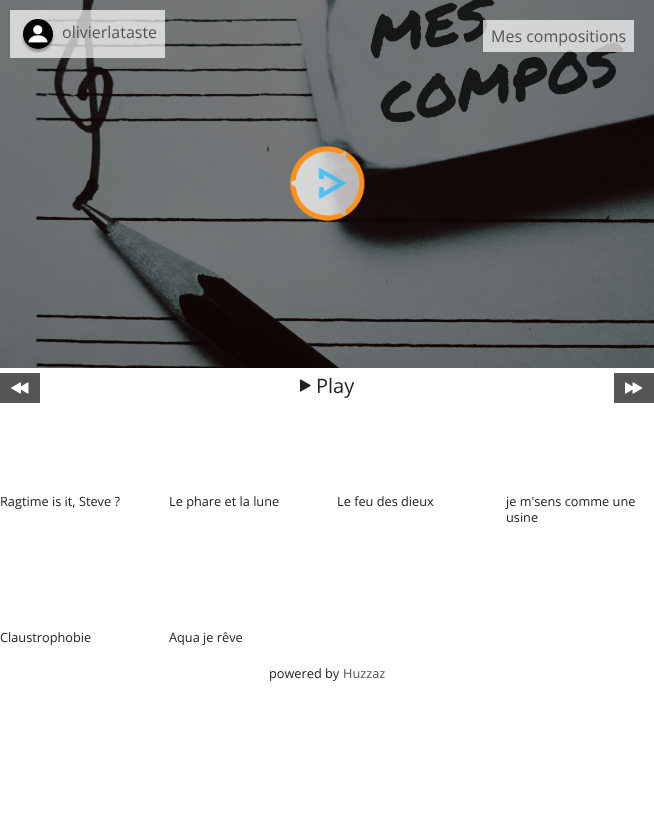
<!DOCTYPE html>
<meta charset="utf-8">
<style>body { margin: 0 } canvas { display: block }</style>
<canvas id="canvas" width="654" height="822"></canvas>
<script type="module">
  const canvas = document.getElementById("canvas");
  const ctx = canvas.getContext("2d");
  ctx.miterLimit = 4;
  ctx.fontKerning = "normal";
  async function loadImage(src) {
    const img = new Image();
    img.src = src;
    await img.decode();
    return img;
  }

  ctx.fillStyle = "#ffffff";
  ctx.fillRect(0, 0, 654, 822);
  ctx.drawImage(await loadImage("img1.png"), 0, 0, 654, 368);
  ctx.drawImage(await loadImage("img2.png"), 290, 146, 75, 75);
  ctx.drawImage(await loadImage("img3.png"), 318, 161, 29, 39);
  ctx.fillStyle = "rgba(255, 255, 255, 0.7)";
  ctx.fillRect(10, 10, 155, 48);
  ctx.fillStyle = "rgba(0, 0, 0, 0.3)";
  ctx.filter = "blur(1px)";
  ctx.beginPath();
  ctx.roundRect(23, 22, 30, 30, 15);
  ctx.fill();
  ctx.filter = "none";
  ctx.drawImage(await loadImage("img4.png"), 23, 19, 30, 30);
  ctx.font = "16px Open Sans";
  ctx.fillStyle = "#555555";
  ctx.fillText("olivierlataste", 62, 38);
  ctx.fillStyle = "rgba(255, 255, 255, 0.7)";
  ctx.fillRect(483, 20, 151, 32);
  ctx.fillStyle = "#555555";
  ctx.fillText("Mes compositions", 491, 42);
  ctx.fillRect(0, 373, 40, 30);
  ctx.drawImage(await loadImage("img5.png"), 11, 382, 18, 12);
  ctx.drawImage(await loadImage("img6.png"), 300, 379, 11, 13);
  ctx.font = "20px Open Sans";
  ctx.fillStyle = "#222222";
  ctx.fillText("Play", 316, 393);
  ctx.fillStyle = "#555555";
  ctx.fillRect(614, 373, 40, 30);
  ctx.drawImage(await loadImage("img7.png"), 625, 382, 18, 12);
  ctx.font = "12.75px Open Sans";
  ctx.fillStyle = "#222222";
  ctx.fillText("Ragtime is it, Steve ?", 0, 506);
  ctx.fillText("Le phare et la lune", 169, 506);
  ctx.fillText("Le feu des dieux", 337, 506);
  ctx.fillText("je m'sens comme une", 506, 506);
  ctx.fillText("usine", 506, 522);
  ctx.fillText("Claustrophobie", 0, 642);
  ctx.fillText("Aqua je rêve", 169, 642);
  ctx.fillText("powered by", 269, 678);
  ctx.fillStyle = "#555555";
  ctx.fillText("Huzzaz", 343, 678);
</script>
